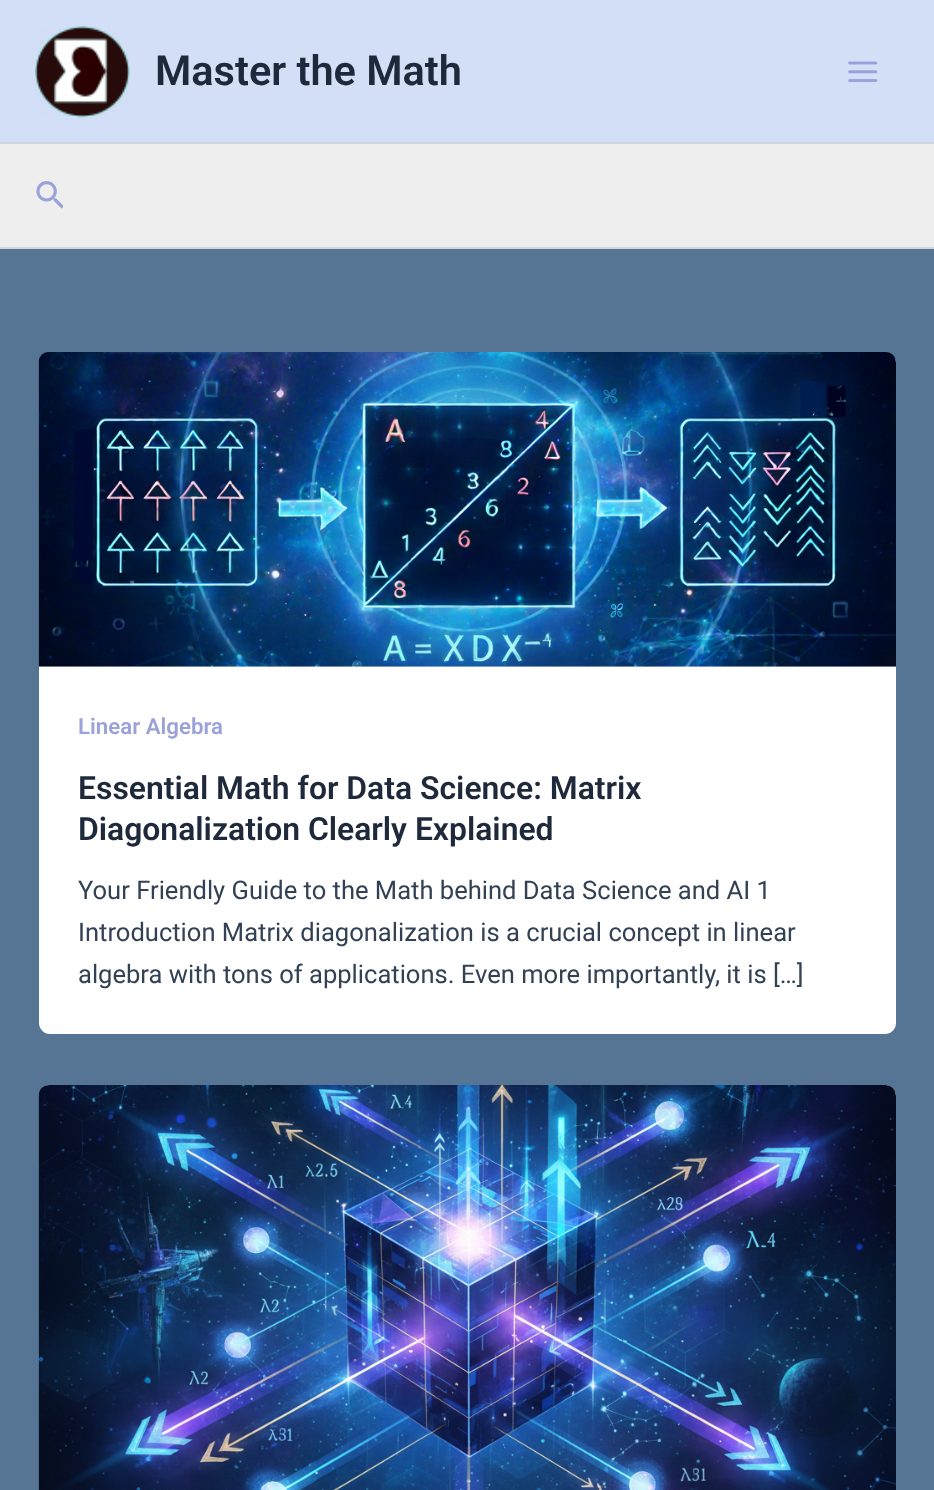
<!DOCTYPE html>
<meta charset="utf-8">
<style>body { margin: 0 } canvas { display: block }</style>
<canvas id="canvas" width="934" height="1490"></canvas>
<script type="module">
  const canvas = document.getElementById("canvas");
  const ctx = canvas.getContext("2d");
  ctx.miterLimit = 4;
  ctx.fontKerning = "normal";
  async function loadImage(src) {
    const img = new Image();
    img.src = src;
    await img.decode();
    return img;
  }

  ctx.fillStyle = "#567595";
  ctx.fillRect(0, 0, 934, 1490);
  ctx.fillStyle = "#d3def7";
  ctx.fillRect(0, 0, 934, 142);
  ctx.fillStyle = "#d1d5db";
  ctx.fillRect(0, 142, 934, 2);
  ctx.drawImage(await loadImage("img1.png"), 35, 26, 95, 92);
  ctx.font = "600 41.5px Roboto";
  ctx.fillStyle = "#1e293b";
  ctx.fillText("Master the Math", 155, 85);
  ctx.drawImage(await loadImage("img2.png"), 848, 61, 30, 21);
  ctx.fillStyle = "#eeeeee";
  ctx.fillRect(0, 144, 934, 103);
  ctx.fillStyle = "#d1d5db";
  ctx.fillRect(0, 247, 934, 2);
  ctx.drawImage(await loadImage("img3.png"), 36, 181, 27, 28);
  ctx.fillStyle = "#ffffff";
  ctx.beginPath();
  ctx.roundRect(39, 352, 857, 682, 11);
  ctx.fill();
  ctx.drawImage(await loadImage("img4.png"), 38, 352, 858, 315);
  ctx.font = "600 22.25px Roboto";
  ctx.fillStyle = "#9ba2da";
  ctx.fillText("Linear Algebra", 78, 734);
  ctx.font = "600 31.9px Roboto";
  ctx.fillStyle = "#1e293b";
  ctx.fillText("Essential Math for Data Science: Matrix", 78, 799);
  ctx.fillText("Diagonalization Clearly Explained", 78, 840);
  ctx.font = "25.55px Roboto";
  ctx.fillStyle = "#334155";
  ctx.fillText("Your Friendly Guide to the Math behind Data Science and AI 1", 78, 899);
  ctx.fillText("Introduction Matrix diagonalization is a crucial concept in linear", 78, 941);
  ctx.fillText("algebra with tons of applications. Even more importantly, it is […]", 78, 983);
  ctx.fillStyle = "#ffffff";
  ctx.beginPath();
  ctx.roundRect(39, 1085, 857, 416, 11);
  ctx.fill();
  ctx.drawImage(await loadImage("img5.png"), 38, 1085, 858, 405);
</script>
